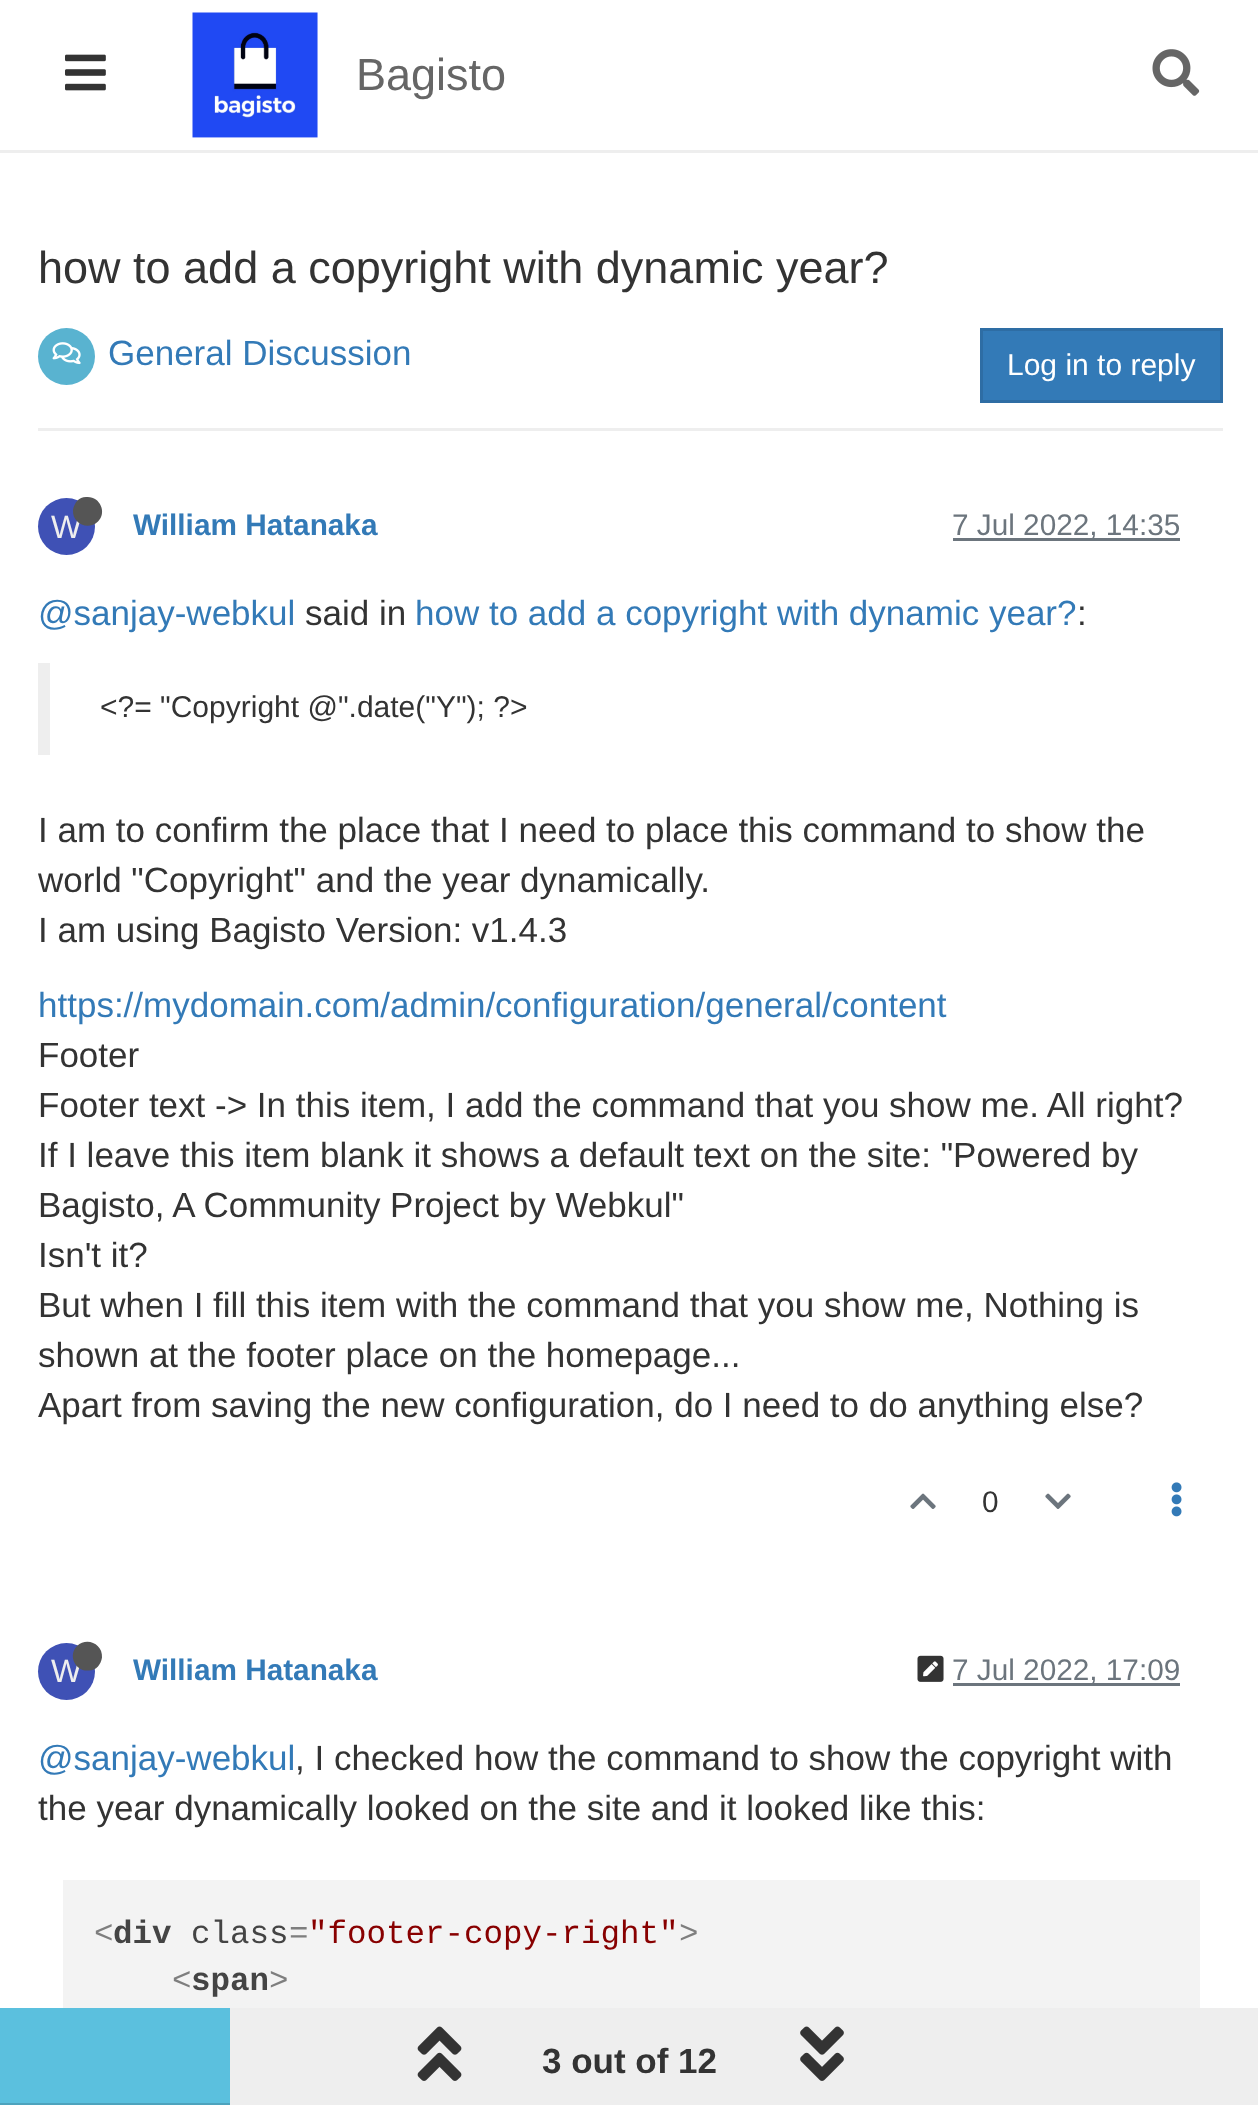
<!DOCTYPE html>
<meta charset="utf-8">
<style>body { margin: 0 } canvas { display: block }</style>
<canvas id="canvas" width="1258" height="2105"></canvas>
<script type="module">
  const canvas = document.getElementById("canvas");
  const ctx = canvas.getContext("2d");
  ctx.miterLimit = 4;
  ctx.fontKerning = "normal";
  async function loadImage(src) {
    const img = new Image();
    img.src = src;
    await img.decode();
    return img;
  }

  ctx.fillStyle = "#ffffff";
  ctx.fillRect(0, 0, 1258, 2105);
  ctx.fillStyle = "#eeeeee";
  ctx.fillRect(0, 150, 1258, 3);
  ctx.drawImage(await loadImage("img1.png"), 65, 54, 41, 37);
  ctx.drawImage(await loadImage("img2.png"), 192, 12, 126, 126);
  ctx.font = "45px Liberation Sans";
  ctx.fillStyle = "#666666";
  ctx.fillText("Bagisto", 356, 90);
  ctx.drawImage(await loadImage("img3.png"), 1152, 49, 48, 47);
  ctx.fillStyle = "#333333";
  ctx.fillText("how to add a copyright with dynamic year?", 38, 283);
  ctx.fillStyle = "#eeeeee";
  ctx.fillRect(38, 428, 1185, 3);
  ctx.fillStyle = "#59b3d0";
  ctx.beginPath();
  ctx.arc(66.5, 356.5, 28.5, 0, Math.PI * 2);
  ctx.fill();
  ctx.drawImage(await loadImage("img4.png"), 52, 342, 29, 23);
  ctx.font = "35px Liberation Sans";
  ctx.fillStyle = "#337ab7";
  ctx.fillText("General Discussion", 108, 365);
  ctx.beginPath();
  ctx.rect(981.5, 329.5, 240, 72);
  ctx.fill();
  ctx.strokeStyle = "#2e6da4";
  ctx.lineWidth = 3;
  ctx.stroke();
  ctx.font = "30px Liberation Sans";
  ctx.fillStyle = "#ffffff";
  ctx.fillText("Log in to reply", 1007, 375);
  ctx.fillStyle = "#3f51b5";
  ctx.beginPath();
  ctx.arc(66.5, 526.5, 28.5, 0, Math.PI * 2);
  ctx.fill();
  ctx.font = "32.5px Liberation Sans";
  ctx.fillStyle = "#eeeeee";
  ctx.fillText("W", 51, 538);
  ctx.fillStyle = "#555555";
  ctx.beginPath();
  ctx.moveTo(77, 501);
  ctx.bezierCurveTo(79.5, 498.5, 82.5, 497, 86, 497);
  ctx.bezierCurveTo(99.5, 495.5, 107.5, 512, 98, 521.5);
  ctx.bezierCurveTo(88, 531, 72, 523.5, 73, 510);
  ctx.bezierCurveTo(73.5, 506.5, 75, 503.5, 77, 501);
  ctx.closePath();
  ctx.fill();
  ctx.font = "bold 29.75px Liberation Sans";
  ctx.fillStyle = "#337ab7";
  ctx.fillText("William Hatanaka", 133, 535);
  ctx.fillStyle = "#6c757d";
  ctx.fillRect(953, 538, 227, 3);
  ctx.font = "29.75px Liberation Sans";
  ctx.fillText("7 Jul 2022, 14:35", 952, 535);
  ctx.font = "35px Liberation Sans";
  ctx.fillStyle = "#337ab7";
  ctx.fillText("@sanjay-webkul", 38, 625);
  ctx.fillStyle = "#333333";
  ctx.fillText("said in", 305, 625);
  ctx.fillStyle = "#337ab7";
  ctx.fillText("how to add a copyright with dynamic year?", 415, 625);
  ctx.fillStyle = "#333333";
  ctx.fillText(":", 1077, 625);
  ctx.fillStyle = "#eeeeee";
  ctx.fillRect(38, 663, 12, 92);
  ctx.font = "30px Liberation Sans";
  ctx.fillStyle = "#333333";
  ctx.fillText("<?= \"Copyright @\".date(\"Y\"); ?>", 100, 717);
  ctx.font = "35px Liberation Sans";
  ctx.fillText("I am to confirm the place that I need to place this command to show the", 38, 842);
  ctx.fillText("world \"Copyright\" and the year dynamically.", 38, 892);
  ctx.fillText("I am using Bagisto Version: v1.4.3", 38, 942);
  ctx.fillStyle = "#337ab7";
  ctx.fillText("https://mydomain.com/admin/configuration/general/content", 38, 1017);
  ctx.fillStyle = "#333333";
  ctx.fillText("Footer", 38, 1067);
  ctx.fillText("Footer text -> In this item, I add the command that you show me. All right?", 38, 1117);
  ctx.fillText("If I leave this item blank it shows a default text on the site: \"Powered by", 38, 1167);
  ctx.fillText("Bagisto, A Community Project by Webkul\"", 38, 1217);
  ctx.fillText("Isn't it?", 38, 1267);
  ctx.fillText("But when I fill this item with the command that you show me, Nothing is", 38, 1317);
  ctx.fillText("shown at the footer place on the homepage...", 38, 1367);
  ctx.fillText("Apart from saving the new configuration, do I need to do anything else?", 38, 1417);
  ctx.drawImage(await loadImage("img5.png"), 910, 1493, 26, 16);
  ctx.font = "29.75px Liberation Sans";
  ctx.fillText("0", 982, 1512);
  ctx.drawImage(await loadImage("img6.png"), 1045, 1493, 26, 16);
  ctx.drawImage(await loadImage("img7.png"), 1171, 1482, 11, 35);
  ctx.fillStyle = "#3f51b5";
  ctx.beginPath();
  ctx.arc(66.5, 1671.5, 28.5, 0, Math.PI * 2);
  ctx.fill();
  ctx.font = "32.5px Liberation Sans";
  ctx.fillStyle = "#eeeeee";
  ctx.fillText("W", 51, 1682);
  ctx.fillStyle = "#555555";
  ctx.beginPath();
  ctx.moveTo(77, 1646);
  ctx.bezierCurveTo(87, 1636.5, 103, 1644, 102, 1657.5);
  ctx.bezierCurveTo(101.5, 1661, 100, 1664, 98, 1666.5);
  ctx.bezierCurveTo(95.5, 1669, 92.5, 1670.5, 89, 1670.5);
  ctx.bezierCurveTo(75.5, 1672, 67.5, 1655.5, 77, 1646);
  ctx.closePath();
  ctx.fill();
  ctx.font = "bold 29.75px Liberation Sans";
  ctx.fillStyle = "#337ab7";
  ctx.fillText("William Hatanaka", 133, 1680);
  ctx.drawImage(await loadImage("img8.png"), 917, 1655, 27, 27);
  ctx.fillStyle = "#6c757d";
  ctx.fillRect(953, 1683, 227, 3);
  ctx.font = "29.75px Liberation Sans";
  ctx.fillText("7 Jul 2022, 17:09", 952, 1680);
  ctx.font = "35px Liberation Sans";
  ctx.fillStyle = "#337ab7";
  ctx.fillText("@sanjay-webkul", 38, 1770);
  ctx.fillStyle = "#333333";
  ctx.fillText(", I checked how the command to show the copyright with", 295, 1770);
  ctx.fillText("the year dynamically looked on the site and it looked like this:", 38, 1820);
  ctx.fillStyle = "#f3f3f3";
  ctx.fillRect(63, 1880, 1137, 128);
  ctx.font = "32.5px Liberation Mono";
  ctx.fillStyle = "#7e7e7e";
  ctx.fillText("<", 94, 1943);
  ctx.font = "bold 32.5px Liberation Mono";
  ctx.fillStyle = "#444444";
  ctx.fillText("div", 113, 1943);
  ctx.font = "32.5px Liberation Mono";
  ctx.fillText("class", 191, 1943);
  ctx.fillStyle = "#7e7e7e";
  ctx.fillText("=", 289, 1943);
  ctx.fillStyle = "#880000";
  ctx.fillText("\"footer-copy-right\"", 308, 1943);
  ctx.fillStyle = "#7e7e7e";
  ctx.fillText(">", 679, 1943);
  ctx.fillText("<", 172, 1990);
  ctx.font = "bold 32.5px Liberation Mono";
  ctx.fillStyle = "#444444";
  ctx.fillText("span", 191, 1990);
  ctx.font = "32.5px Liberation Mono";
  ctx.fillStyle = "#7e7e7e";
  ctx.fillText(">", 269, 1990);
  ctx.fillStyle = "#eeeeee";
  ctx.fillRect(230, 2008, 1028, 97);
  ctx.fillStyle = "#5bc0de";
  ctx.fillRect(0, 2008, 230, 95);
  ctx.fillStyle = "#4da3bd";
  ctx.fillRect(0, 2103, 230, 2);
  ctx.drawImage(await loadImage("img9.png"), 417, 2026, 45, 55);
  ctx.font = "bold 35px Liberation Sans";
  ctx.fillStyle = "#333333";
  ctx.fillText("3 out of 12", 542, 2073);
  ctx.drawImage(await loadImage("img10.png"), 800, 2026, 44, 55);
</script>
